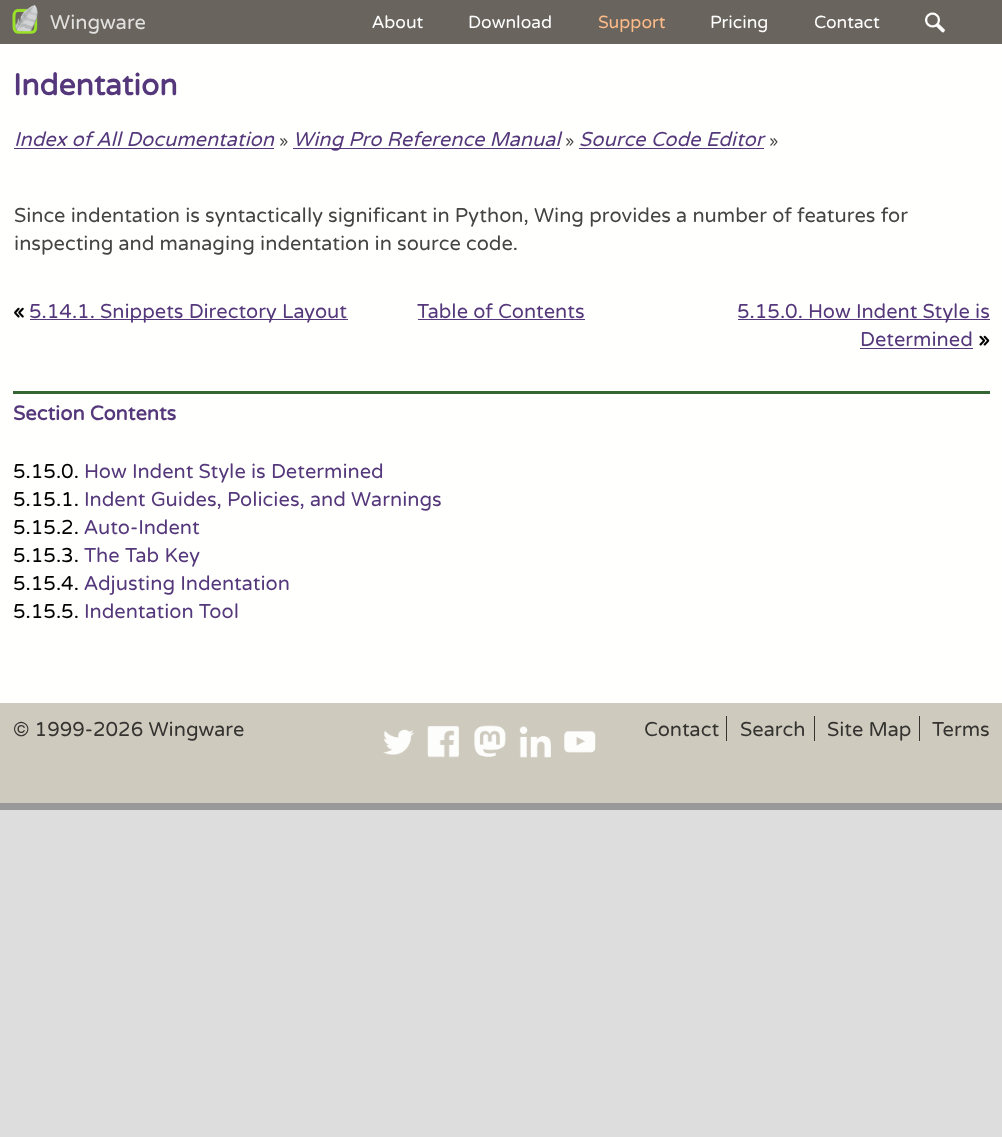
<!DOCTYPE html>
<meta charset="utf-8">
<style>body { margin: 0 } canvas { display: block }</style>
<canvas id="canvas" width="1002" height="1137"></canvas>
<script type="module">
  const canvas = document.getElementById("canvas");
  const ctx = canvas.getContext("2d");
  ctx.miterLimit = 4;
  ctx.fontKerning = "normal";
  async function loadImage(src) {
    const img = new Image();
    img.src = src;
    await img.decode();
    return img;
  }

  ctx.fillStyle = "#dddddd";
  ctx.fillRect(0, 0, 1002, 1137);
  ctx.fillStyle = "#fffffd";
  ctx.fillRect(0, 44, 1002, 659);
  ctx.fillStyle = "#69655e";
  ctx.fillRect(0, 0, 1002, 44);
  ctx.drawImage(await loadImage("img1.png"), 12, 5, 26, 29);
  ctx.font = "20px Varela Round";
  ctx.fillStyle = "#e3e2e0";
  ctx.fillText("Wingware", 50, 29);
  ctx.font = "17.5px Varela Round";
  ctx.fillStyle = "#ffffff";
  ctx.fillText("About", 372, 28);
  ctx.fillText("Download", 468, 28);
  ctx.fillStyle = "#ffbb88";
  ctx.fillText("Support", 598, 28);
  ctx.fillStyle = "#ffffff";
  ctx.fillText("Pricing", 710, 28);
  ctx.fillText("Contact", 814, 28);
  ctx.drawImage(await loadImage("img2.png"), 925, 12, 20, 21);
  ctx.font = "bold 30px Varela Round";
  ctx.fillStyle = "#55387b";
  ctx.fillText("Indentation", 13, 95);
  ctx.font = "italic 20px Varela Round";
  ctx.fillText("Index of All Documentation", 14, 146);
  ctx.fillRect(14, 148, 260, 1);
  ctx.font = "16px Varela Round";
  ctx.fillStyle = "#444444";
  ctx.fillText("»", 279, 146);
  ctx.fillStyle = "#55387b";
  ctx.fillRect(293, 148, 267, 1);
  ctx.font = "italic 20px Varela Round";
  ctx.fillText("Wing Pro Reference Manual", 293, 146);
  ctx.font = "16px Varela Round";
  ctx.fillStyle = "#444444";
  ctx.fillText("»", 565, 146);
  ctx.font = "italic 20px Varela Round";
  ctx.fillStyle = "#55387b";
  ctx.fillText("Source Code Editor", 579, 146);
  ctx.fillRect(579, 148, 185, 1);
  ctx.font = "16px Varela Round";
  ctx.fillStyle = "#444444";
  ctx.fillText("»", 769, 146);
  ctx.font = "20px Varela Round";
  ctx.fillText("Since indentation is syntactically significant in Python, Wing provides a number of features for", 14, 222);
  ctx.fillText("inspecting and managing indentation in source code.", 14, 250);
  ctx.font = "bold 20px Varela Round";
  ctx.fillStyle = "#000000";
  ctx.fillText("«", 13, 318);
  ctx.fillStyle = "#55387b";
  ctx.fillRect(30, 319, 318, 1);
  ctx.font = "20px Varela Round";
  ctx.fillText("5.14.1. Snippets Directory Layout", 29, 318);
  ctx.fillText("Table of Contents", 417, 318);
  ctx.fillRect(418, 319, 167, 1);
  ctx.fillRect(738, 319, 252, 1);
  ctx.fillText("5.15.0. How Indent Style is", 737, 318);
  ctx.fillText("Determined", 860, 346);
  ctx.fillRect(860, 348, 113, 1);
  ctx.font = "bold 20px Varela Round";
  ctx.fillStyle = "#000000";
  ctx.fillText("»", 978, 346);
  ctx.fillStyle = "#336633";
  ctx.fillRect(13, 391, 977, 3);
  ctx.fillStyle = "#55387b";
  ctx.fillText("Section Contents", 13, 420);
  ctx.font = "20px Varela Round";
  ctx.fillStyle = "#000000";
  ctx.fillText("5.15.0.", 13, 478);
  ctx.fillStyle = "#55387b";
  ctx.fillText("How Indent Style is Determined", 84, 478);
  ctx.fillStyle = "#000000";
  ctx.fillText("5.15.1.", 13, 506);
  ctx.fillStyle = "#55387b";
  ctx.fillText("Indent Guides, Policies, and Warnings", 84, 506);
  ctx.fillStyle = "#000000";
  ctx.fillText("5.15.2.", 13, 534);
  ctx.fillStyle = "#55387b";
  ctx.fillText("Auto-Indent", 84, 534);
  ctx.fillStyle = "#000000";
  ctx.fillText("5.15.3.", 13, 562);
  ctx.fillStyle = "#55387b";
  ctx.fillText("The Tab Key", 84, 562);
  ctx.fillStyle = "#000000";
  ctx.fillText("5.15.4.", 13, 590);
  ctx.fillStyle = "#55387b";
  ctx.fillText("Adjusting Indentation", 84, 590);
  ctx.fillStyle = "#000000";
  ctx.fillText("5.15.5.", 13, 618);
  ctx.fillStyle = "#55387b";
  ctx.fillText("Indentation Tool", 84, 618);
  ctx.fillStyle = "#cecabe";
  ctx.fillRect(0, 703, 1002, 100);
  ctx.fillStyle = "#999999";
  ctx.fillRect(0, 803, 1002, 7);
  ctx.fillStyle = "#343330";
  ctx.fillText("© 1999-2026 Wingware", 13, 736);
  ctx.drawImage(await loadImage("img3.png"), 383, 729, 31, 26);
  ctx.drawImage(await loadImage("img4.png"), 427, 726, 32, 32);
  ctx.drawImage(await loadImage("img5.png"), 474, 725, 32, 32);
  ctx.drawImage(await loadImage("img6.png"), 519, 726, 32, 32);
  ctx.drawImage(await loadImage("img7.png"), 564, 731, 32, 22);
  ctx.fillText("Contact", 644, 736);
  ctx.fillText("Search", 740, 736);
  ctx.fillRect(726, 716, 1, 25);
  ctx.fillText("Site Map", 827, 736);
  ctx.fillRect(814, 716, 1, 25);
  ctx.fillText("Terms", 932, 736);
  ctx.fillRect(919, 716, 1, 25);
</script>
